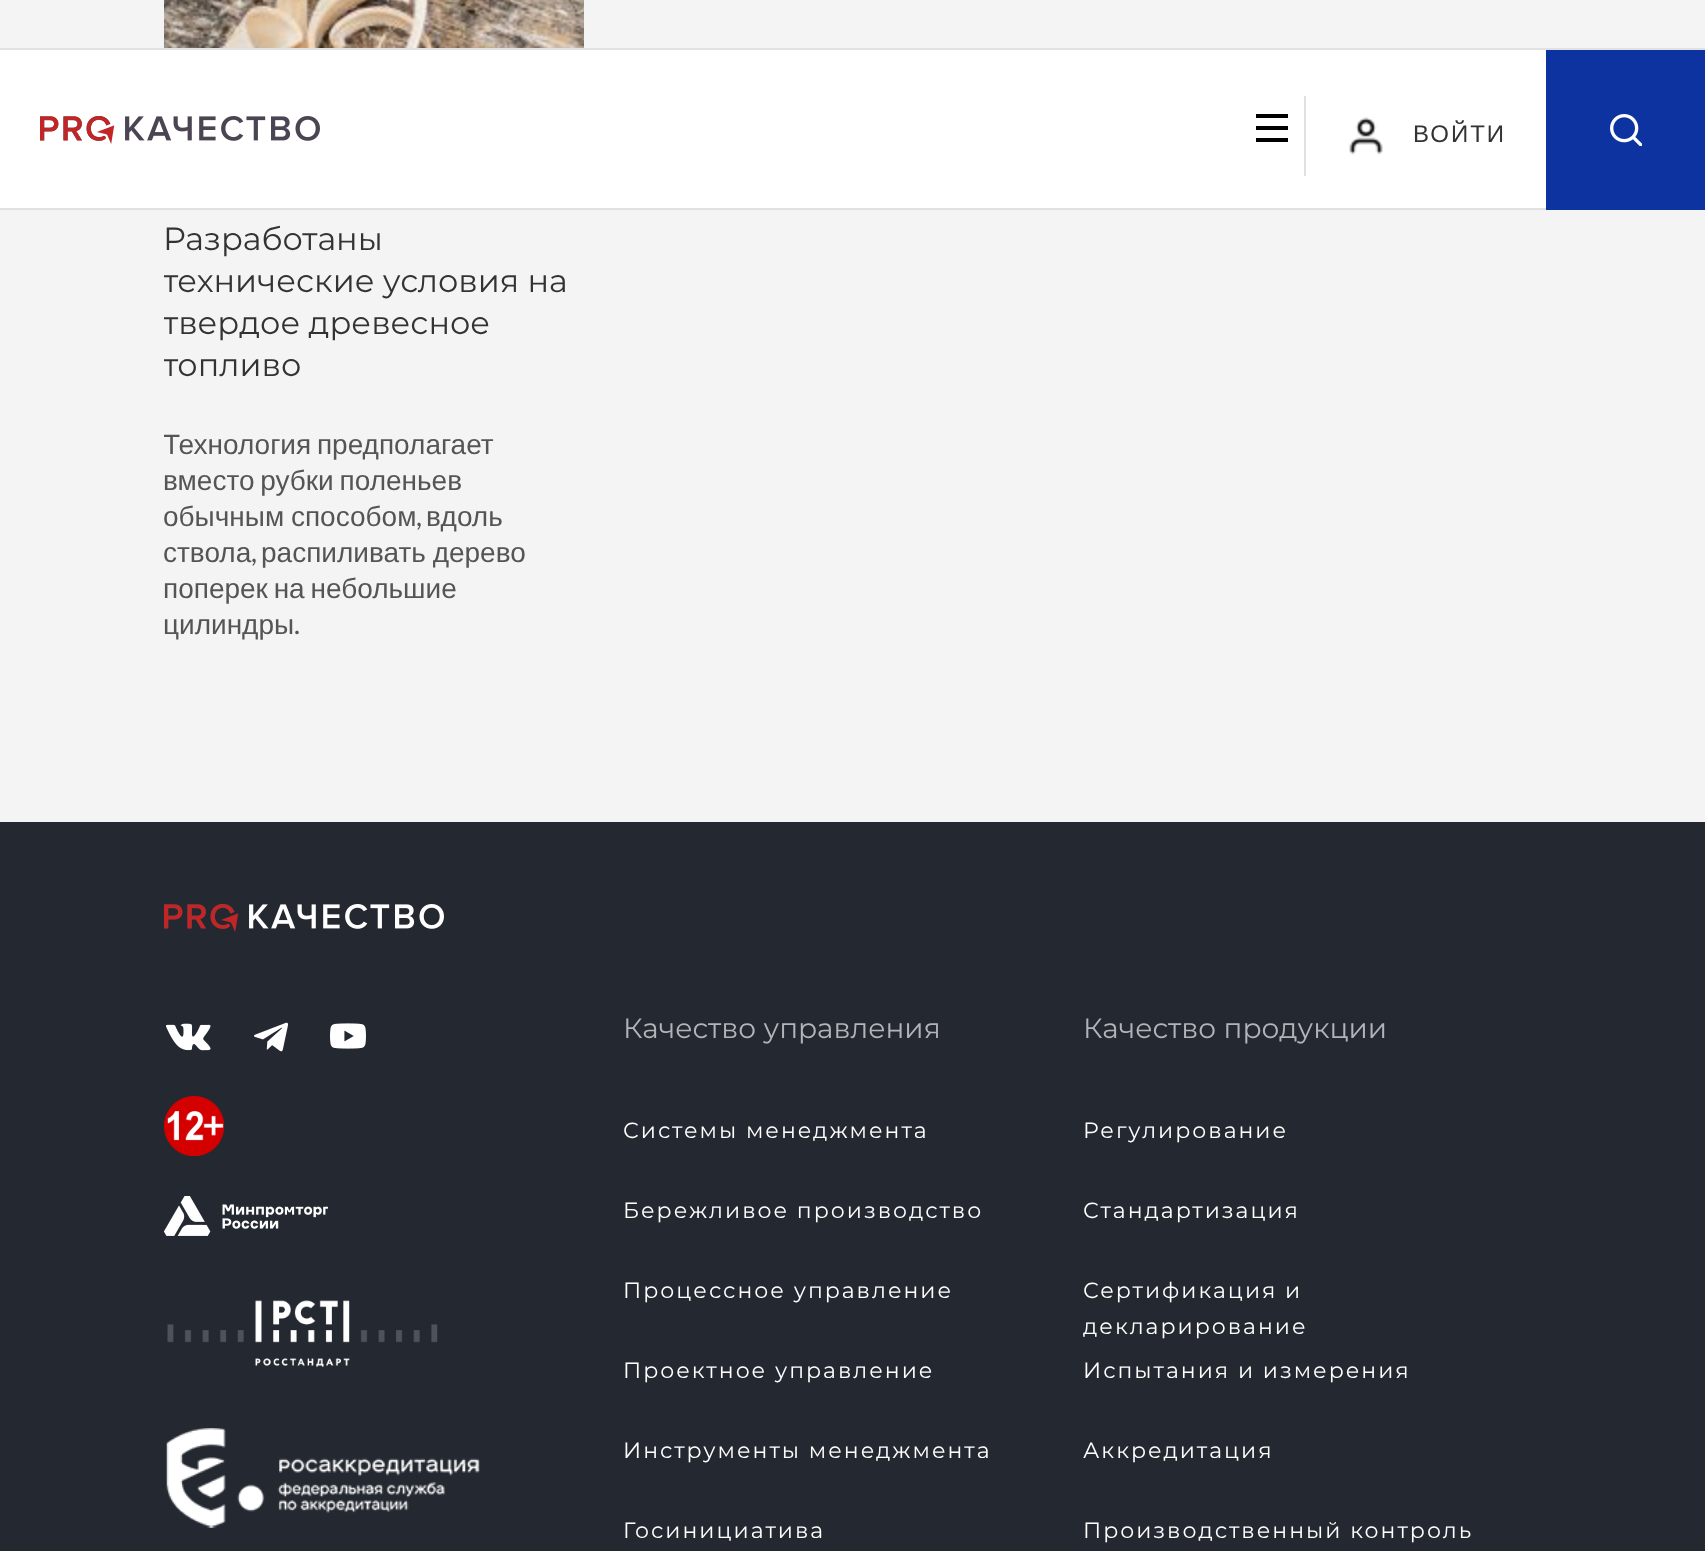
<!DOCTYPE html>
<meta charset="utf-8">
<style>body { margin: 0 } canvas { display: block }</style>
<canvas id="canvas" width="1705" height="1551"></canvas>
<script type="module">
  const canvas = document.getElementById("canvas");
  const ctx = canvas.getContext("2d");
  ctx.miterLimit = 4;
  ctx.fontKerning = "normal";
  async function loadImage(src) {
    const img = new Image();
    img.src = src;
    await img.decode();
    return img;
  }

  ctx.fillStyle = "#f4f4f4";
  ctx.fillRect(0, 0, 1705, 1551);
  ctx.fillStyle = "#e1e1e1";
  ctx.fillRect(0, 48, 1705, 2);
  ctx.fillStyle = "#ffffff";
  ctx.fillRect(0, 50, 1546, 158);
  ctx.fillStyle = "#e1e1e1";
  ctx.fillRect(0, 208, 1546, 2);
  ctx.drawImage(await loadImage("img1.png"), 40, 116, 280, 28);
  ctx.fillStyle = "#000000";
  ctx.fillRect(1256, 114, 32, 4);
  ctx.fillRect(1256, 126, 32, 4);
  ctx.fillRect(1256, 138, 32, 4);
  ctx.fillStyle = "#e1e1e1";
  ctx.fillRect(1304, 96, 2, 80);
  ctx.drawImage(await loadImage("img2.png"), 1349, 117, 34, 38);
  ctx.letterSpacing = "2px";
  ctx.font = "24px Liberation Sans";
  ctx.fillStyle = "#333333";
  ctx.fillText("ВОЙТИ", 1413, 142);
  ctx.fillStyle = "#0c339f";
  ctx.fillRect(1546, 50, 159, 160);
  ctx.drawImage(await loadImage("img3.png"), 1610, 114, 32, 32);
  ctx.drawImage(await loadImage("img4.png"), 164, 0, 420, 48);
  ctx.letterSpacing = "0px";
  ctx.font = "32px Montserrat";
  ctx.fillStyle = "#333333";
  ctx.fillText("Разработаны", 163, 250);
  ctx.save();
  ctx.beginPath();
  ctx.rect(164, 0, 1380, 702);
  ctx.clip();
  ctx.fillText("технические условия на", 163, 292);
  ctx.fillText("твердое древесное", 163, 334);
  ctx.fillText("топливо", 163, 376);
  ctx.wordSpacing = "-2px";
  ctx.font = "28px Liberation Sans";
  ctx.fillStyle = "#555555";
  ctx.fillText("Технология предполагает", 163, 454);
  ctx.restore();
  ctx.wordSpacing = "-2px";
  ctx.font = "28px Liberation Sans";
  ctx.fillStyle = "#555555";
  ctx.fillText("вместо рубки поленьев", 163, 490);
  ctx.wordSpacing = "-1px";
  ctx.fillText("обычным способом", 163, 526);
  ctx.wordSpacing = "0px";
  ctx.font = "28px Lato";
  ctx.fillText(",", 416, 526);
  ctx.font = "28px Liberation Sans";
  ctx.fillText("вдоль", 426, 526);
  ctx.fillText("ствола", 163, 562);
  ctx.font = "28px Lato";
  ctx.fillText(",", 251, 562);
  ctx.wordSpacing = "-1px";
  ctx.font = "28px Liberation Sans";
  ctx.fillText("распиливать дерево", 261, 562);
  ctx.wordSpacing = "-2px";
  ctx.fillText("поперек на небольшие", 163, 598);
  ctx.wordSpacing = "0px";
  ctx.fillText("цилиндры", 163, 634);
  ctx.font = "28px Lato";
  ctx.fillText(".", 294, 634);
  ctx.fillStyle = "#242830";
  ctx.fillRect(0, 822, 1705, 729);
  ctx.drawImage(await loadImage("img5.png"), 164, 904, 280, 28);
  ctx.drawImage(await loadImage("img6.png"), 166, 1023, 45, 28);
  ctx.drawImage(await loadImage("img7.png"), 254, 1022, 34, 30);
  ctx.drawImage(await loadImage("img8.png"), 330, 1023, 36, 26);
  ctx.drawImage(await loadImage("img9.png"), 164, 1096, 60, 60);
  ctx.drawImage(await loadImage("img10.png"), 164, 1196, 164, 40);
  ctx.drawImage(await loadImage("img11.png"), 167, 1300, 271, 68);
  ctx.drawImage(await loadImage("img12.png"), 166, 1428, 314, 100);
  ctx.font = "28px Montserrat";
  ctx.fillStyle = "#b2b4b7";
  ctx.fillText("Качество управления", 623, 1038);
  ctx.letterSpacing = "2px";
  ctx.font = "22px Montserrat";
  ctx.fillStyle = "#ffffff";
  ctx.fillText("Системы менеджмента", 623, 1138);
  ctx.fillText("Бережливое производство", 623, 1218);
  ctx.fillText("Процессное управление", 623, 1298);
  ctx.fillText("Проектное управление", 623, 1378);
  ctx.fillText("Инструменты менеджмента", 623, 1458);
  ctx.fillText("Госинициатива", 623, 1538);
  ctx.letterSpacing = "0px";
  ctx.font = "28px Montserrat";
  ctx.fillStyle = "#b2b4b7";
  ctx.fillText("Качество продукции", 1083, 1038);
  ctx.letterSpacing = "2px";
  ctx.font = "22px Montserrat";
  ctx.fillStyle = "#ffffff";
  ctx.fillText("Регулирование", 1083, 1138);
  ctx.fillText("Стандартизация", 1083, 1218);
  ctx.fillText("Сертификация и", 1083, 1298);
  ctx.fillText("декларирование", 1083, 1334);
  ctx.fillText("Испытания и измерения", 1083, 1378);
  ctx.fillText("Аккредитация", 1083, 1458);
  ctx.fillText("Производственный контроль", 1083, 1538);
</script>
